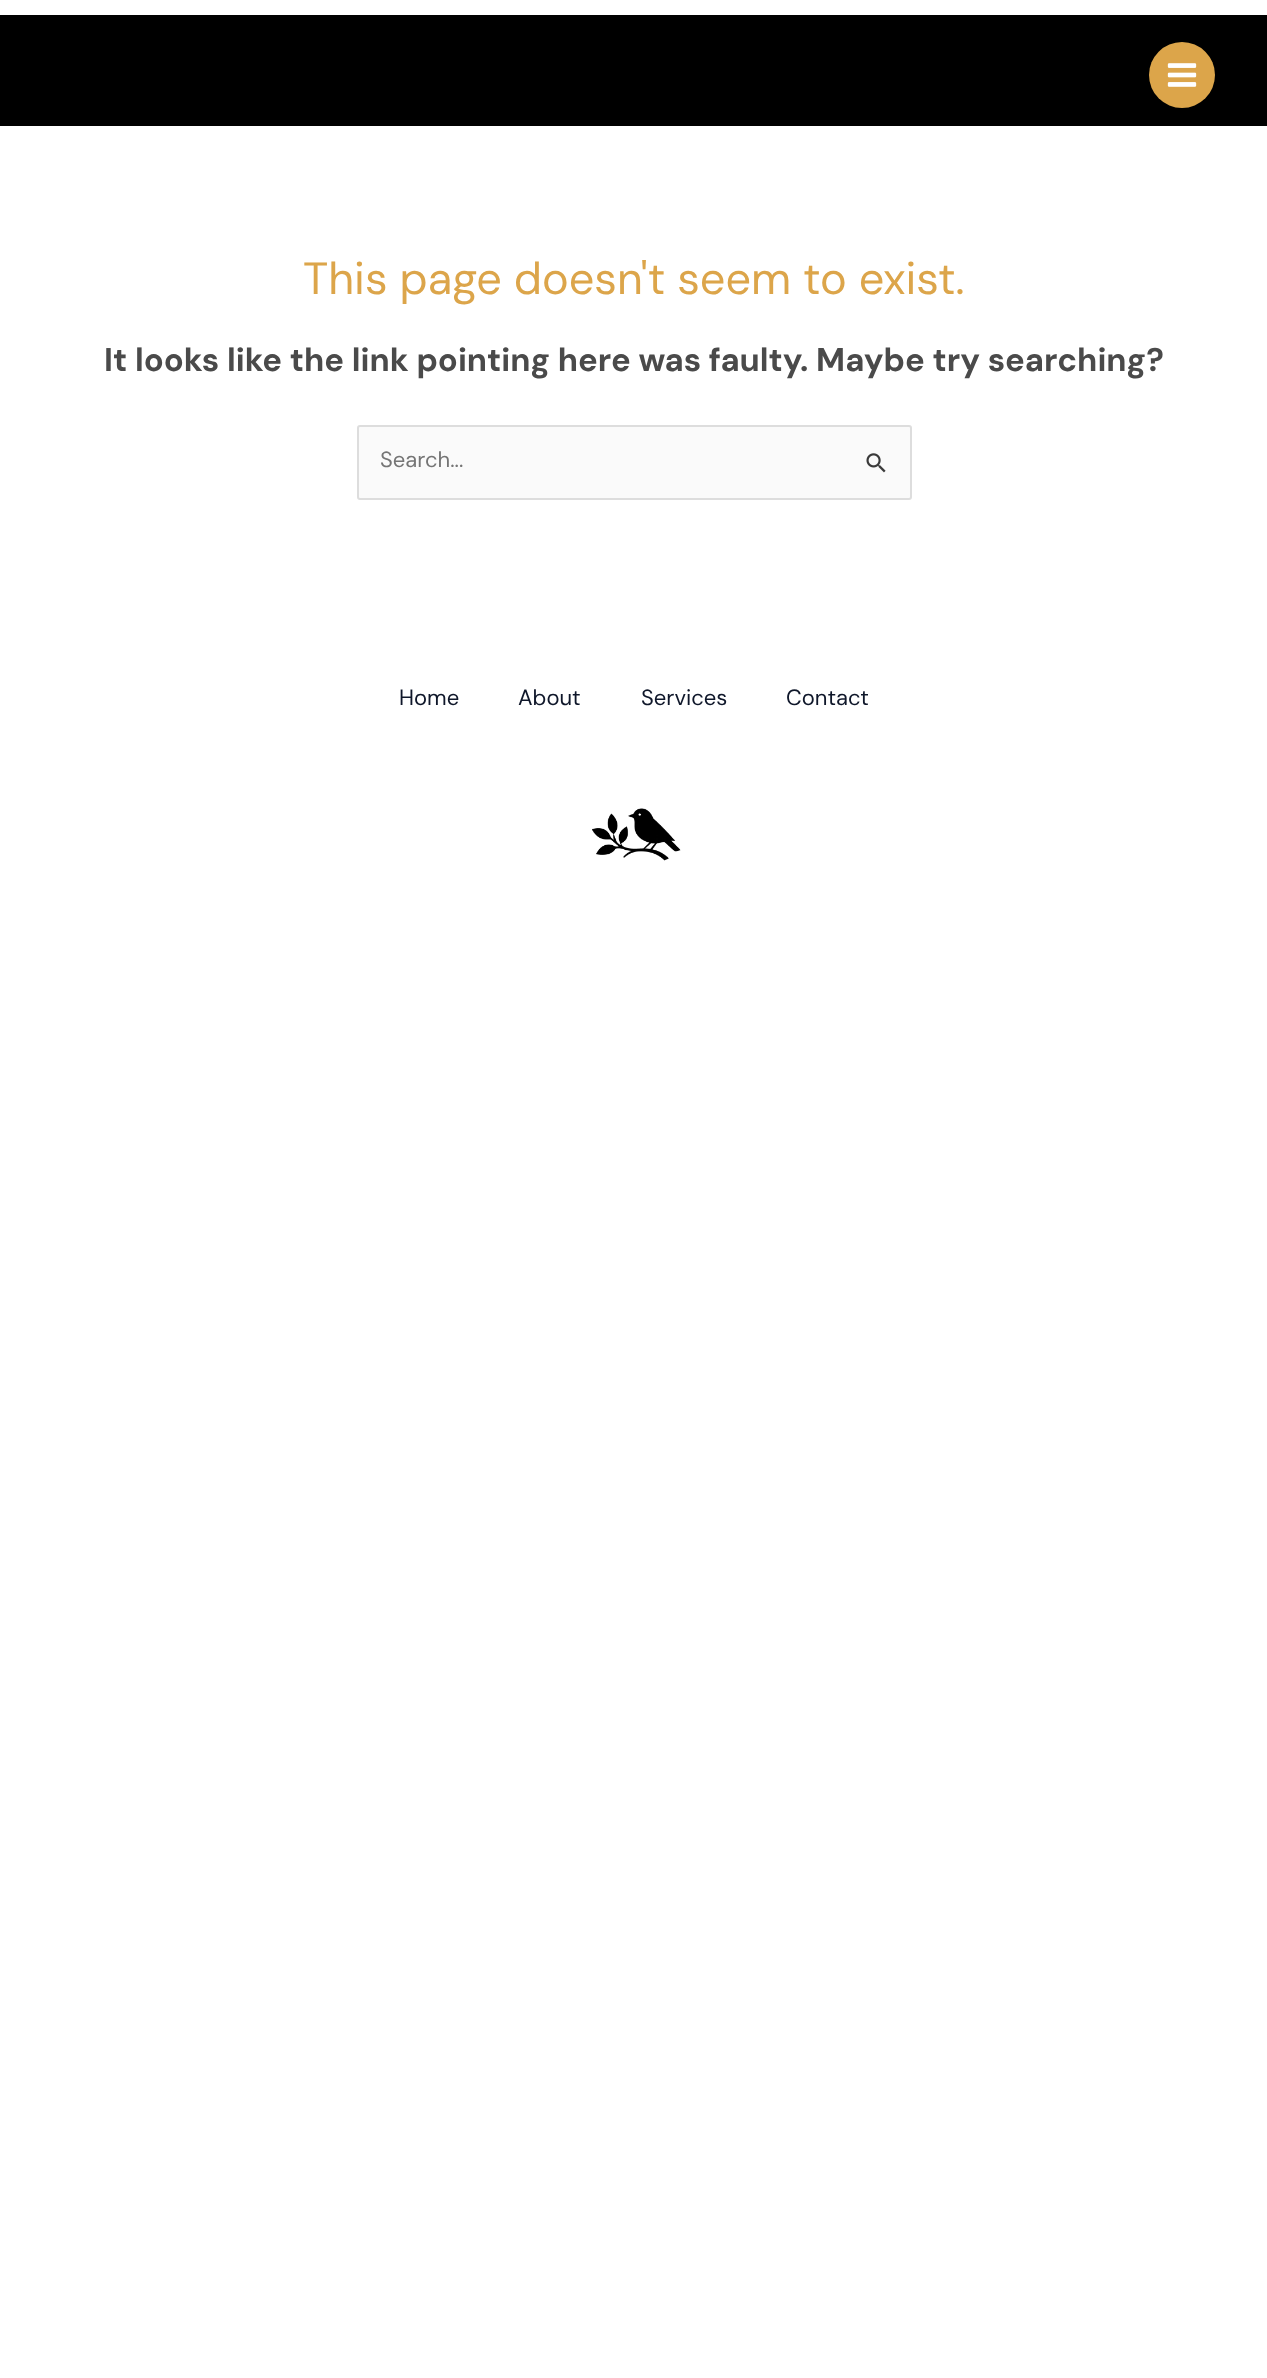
<!DOCTYPE html>
<meta charset="utf-8">
<style>body { margin: 0 } canvas { display: block }</style>
<canvas id="canvas" width="1267" height="2378"></canvas>
<script type="module">
  const canvas = document.getElementById("canvas");
  const ctx = canvas.getContext("2d");
  ctx.miterLimit = 4;
  ctx.fontKerning = "normal";
  async function loadImage(src) {
    const img = new Image();
    img.src = src;
    await img.decode();
    return img;
  }

  ctx.fillStyle = "#ffffff";
  ctx.fillRect(0, 0, 1267, 2378);
  ctx.fillStyle = "#000000";
  ctx.fillRect(0, 15, 1267, 111);
  ctx.fillStyle = "#dca54a";
  ctx.beginPath();
  ctx.arc(1182, 75, 33, 0, Math.PI * 2);
  ctx.fill();
  ctx.drawImage(await loadImage("img1.png"), 1167, 63, 30, 24);
  ctx.font = "45px DM Sans";
  ctx.fillText("This page doesn't seem to exist.", 303, 294);
  ctx.font = "bold 32.8px DM Sans";
  ctx.fillStyle = "#4a4a4a";
  ctx.fillText("It looks like the link pointing here was faulty. Maybe try searching?", 104, 371);
  ctx.fillStyle = "#fafafa";
  ctx.beginPath();
  ctx.roundRect(358, 426, 553, 73, 2);
  ctx.fill();
  ctx.strokeStyle = "#dddddd";
  ctx.lineWidth = 2;
  ctx.stroke();
  ctx.font = "22px DM Sans";
  ctx.fillStyle = "#757575";
  ctx.fillText("Search...", 380, 467);
  ctx.drawImage(await loadImage("img2.png"), 866, 453, 20, 20);
  ctx.fillStyle = "#0f172a";
  ctx.fillText("Home", 399, 705);
  ctx.fillText("About", 518, 705);
  ctx.fillText("Services", 641, 705);
  ctx.fillText("Contact", 786, 705);
  ctx.drawImage(await loadImage("img3.png"), 592, 808, 89, 53);
</script>
